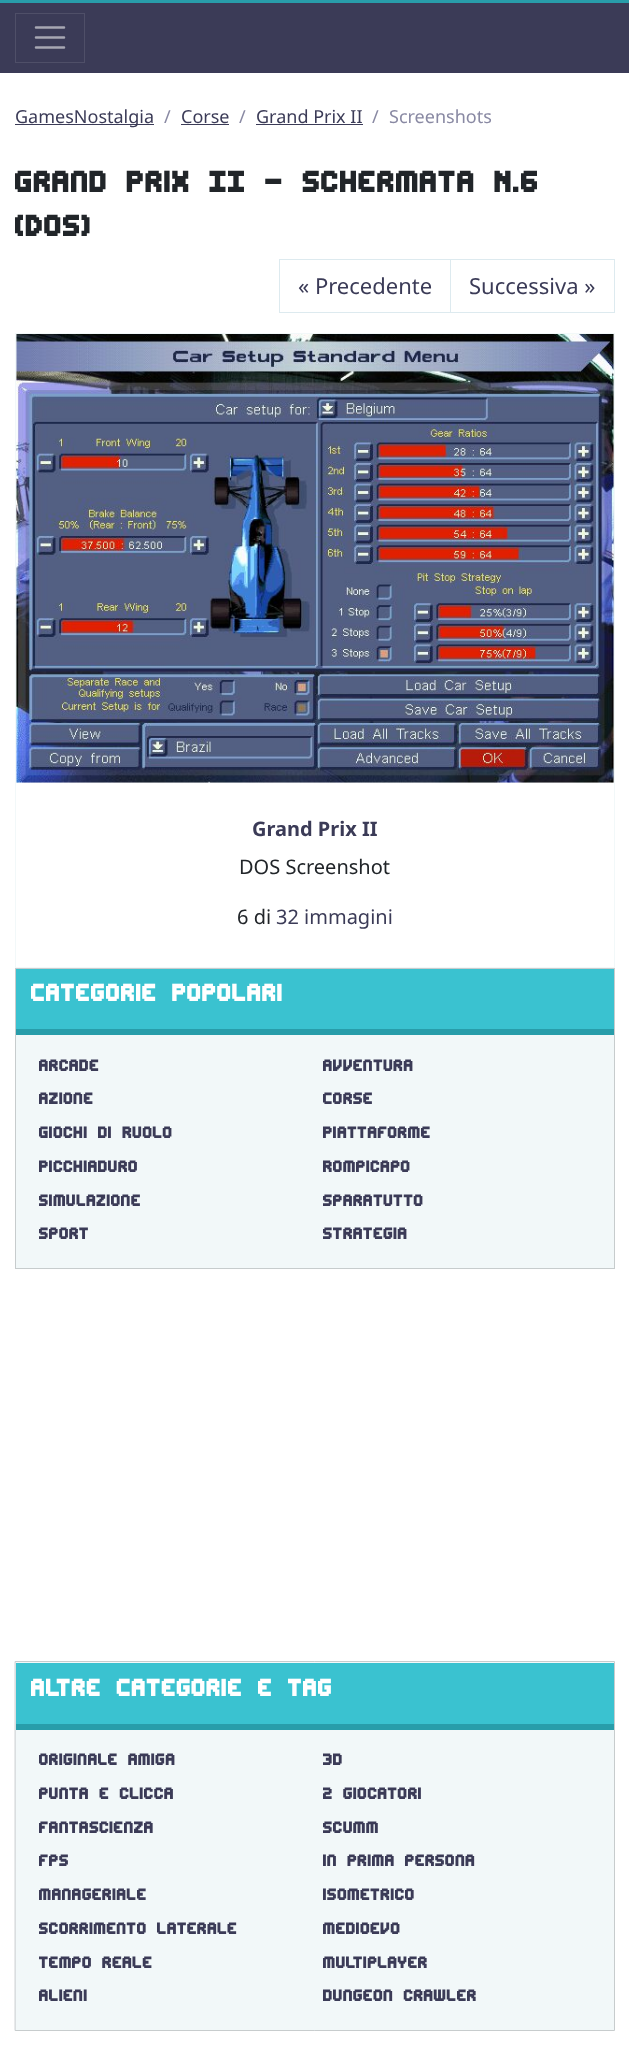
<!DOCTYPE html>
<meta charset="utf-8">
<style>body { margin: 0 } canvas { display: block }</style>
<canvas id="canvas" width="629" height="2058"></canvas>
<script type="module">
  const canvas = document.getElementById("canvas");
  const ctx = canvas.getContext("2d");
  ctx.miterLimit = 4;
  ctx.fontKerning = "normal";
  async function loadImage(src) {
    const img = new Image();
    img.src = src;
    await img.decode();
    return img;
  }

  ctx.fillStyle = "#ffffff";
  ctx.fillRect(0, 0, 629, 2058);
  ctx.fillStyle = "#289daa";
  ctx.fillRect(0, 0, 629, 3);
  ctx.fillStyle = "#3b3b57";
  ctx.fillRect(0, 3, 629, 70);
  ctx.strokeStyle = "#4f4f68";
  ctx.strokeRect(15.5, 13.5, 69, 49);
  ctx.beginPath();
  ctx.moveTo(36, 27.5);
  ctx.lineTo(64, 27.5);
  ctx.moveTo(36, 37.5);
  ctx.lineTo(64, 37.5);
  ctx.moveTo(36, 47.5);
  ctx.lineTo(64, 47.5);
  ctx.strokeStyle = "#a7a7b3";
  ctx.lineWidth = 2.5;
  ctx.lineCap = "round";
  ctx.stroke();
  ctx.fillRect(15, 124, 139, 1);
  ctx.font = "18px Noto Sans";
  ctx.fillText("GamesNostalgia", 15, 123);
  ctx.fillStyle = "#8989a3";
  ctx.fillText("/", 164, 123);
  ctx.fillStyle = "#3b3b57";
  ctx.fillText("Corse", 181, 123);
  ctx.fillRect(181, 124, 48, 1);
  ctx.fillStyle = "#8989a3";
  ctx.fillText("/", 239, 123);
  ctx.fillStyle = "#3b3b57";
  ctx.fillText("Grand Prix II", 256, 123);
  ctx.fillRect(256, 124, 107, 1);
  ctx.fillStyle = "#8989a3";
  ctx.fillText("/", 372, 123);
  ctx.fillText("Screenshots", 389, 123);
  ctx.font = "37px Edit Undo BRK";
  ctx.fillStyle = "#212529";
  ctx.fillText("Grand Prix II - Schermata N.6", 15, 192);
  ctx.fillText("(DOS)", 15, 236);
  ctx.strokeStyle = "#ddeaef";
  ctx.lineWidth = 1;
  ctx.strokeRect(279.5, 259.5, 171, 53);
  ctx.font = "22px Noto Sans";
  ctx.fillStyle = "#3b3b57";
  ctx.fillText("« Precedente", 298, 294);
  ctx.strokeRect(450.5, 259.5, 164, 53);
  ctx.fillText("Successiva »", 469, 294);
  ctx.strokeStyle = "#f2f8f9";
  ctx.strokeRect(15.5, 333.5, 599, 634);
  ctx.drawImage(await loadImage("img1.png"), 16, 334, 598, 449);
  ctx.font = "bold 20px Noto Sans";
  ctx.fillText("Grand Prix II", 252, 836);
  ctx.font = "20px Noto Sans";
  ctx.fillStyle = "#212529";
  ctx.fillText("DOS Screenshot", 239, 874);
  ctx.fillText("6 di", 237, 924);
  ctx.fillStyle = "#3b3b57";
  ctx.fillText("32 immagini", 276, 924);
  ctx.fillStyle = "#f2f8f9";
  ctx.fillRect(16, 1035, 598, 233);
  ctx.strokeStyle = "#c7cccd";
  ctx.strokeRect(15.5, 968.5, 599, 300);
  ctx.fillStyle = "#3ac2d0";
  ctx.fillRect(16, 969, 598, 60);
  ctx.fillStyle = "#289daa";
  ctx.fillRect(16, 1029, 598, 6);
  ctx.font = "29.75px Edit Undo BRK";
  ctx.fillStyle = "#ffffff";
  ctx.fillText("Categorie Popolari", 31, 1001);
  ctx.font = "20px Edit Undo BRK";
  ctx.fillStyle = "#3b3b57";
  ctx.fillText("Arcade", 39, 1071);
  ctx.fillText("Avventura", 323, 1071);
  ctx.fillText("Azione", 39, 1104);
  ctx.fillText("Corse", 323, 1104);
  ctx.fillText("Giochi di Ruolo", 39, 1138);
  ctx.fillText("Piattaforme", 323, 1138);
  ctx.fillText("Picchiaduro", 39, 1172);
  ctx.fillText("Rompicapo", 323, 1172);
  ctx.fillText("Simulazione", 39, 1206);
  ctx.fillText("Sparatutto", 323, 1206);
  ctx.fillText("Sport", 39, 1239);
  ctx.fillText("Strategia", 323, 1239);
  ctx.fillStyle = "#f2f8f9";
  ctx.beginPath();
  ctx.rect(15.5, 1661.5, 599, 369);
  ctx.fill();
  ctx.stroke();
  ctx.fillStyle = "#3ac2d0";
  ctx.fillRect(16, 1663, 598, 61);
  ctx.fillStyle = "#289daa";
  ctx.fillRect(16, 1724, 598, 6);
  ctx.font = "29.75px Edit Undo BRK";
  ctx.fillStyle = "#ffffff";
  ctx.fillText("Altre Categorie e Tag", 31, 1696);
  ctx.font = "20px Edit Undo BRK";
  ctx.fillStyle = "#3b3b57";
  ctx.fillText("originale amiga", 39, 1765);
  ctx.fillText("3d", 323, 1765);
  ctx.fillText("punta e clicca", 39, 1799);
  ctx.fillText("2 giocatori", 323, 1799);
  ctx.fillText("fantascienza", 39, 1833);
  ctx.fillText("scumm", 323, 1833);
  ctx.fillText("fps", 39, 1866);
  ctx.fillText("in prima persona", 323, 1866);
  ctx.fillText("manageriale", 39, 1900);
  ctx.fillText("isometrico", 323, 1900);
  ctx.fillText("scorrimento laterale", 39, 1934);
  ctx.fillText("medioevo", 323, 1934);
  ctx.fillText("tempo reale", 39, 1968);
  ctx.fillText("multiplayer", 323, 1968);
  ctx.fillText("alieni", 39, 2001);
  ctx.fillText("dungeon crawler", 323, 2001);
</script>
